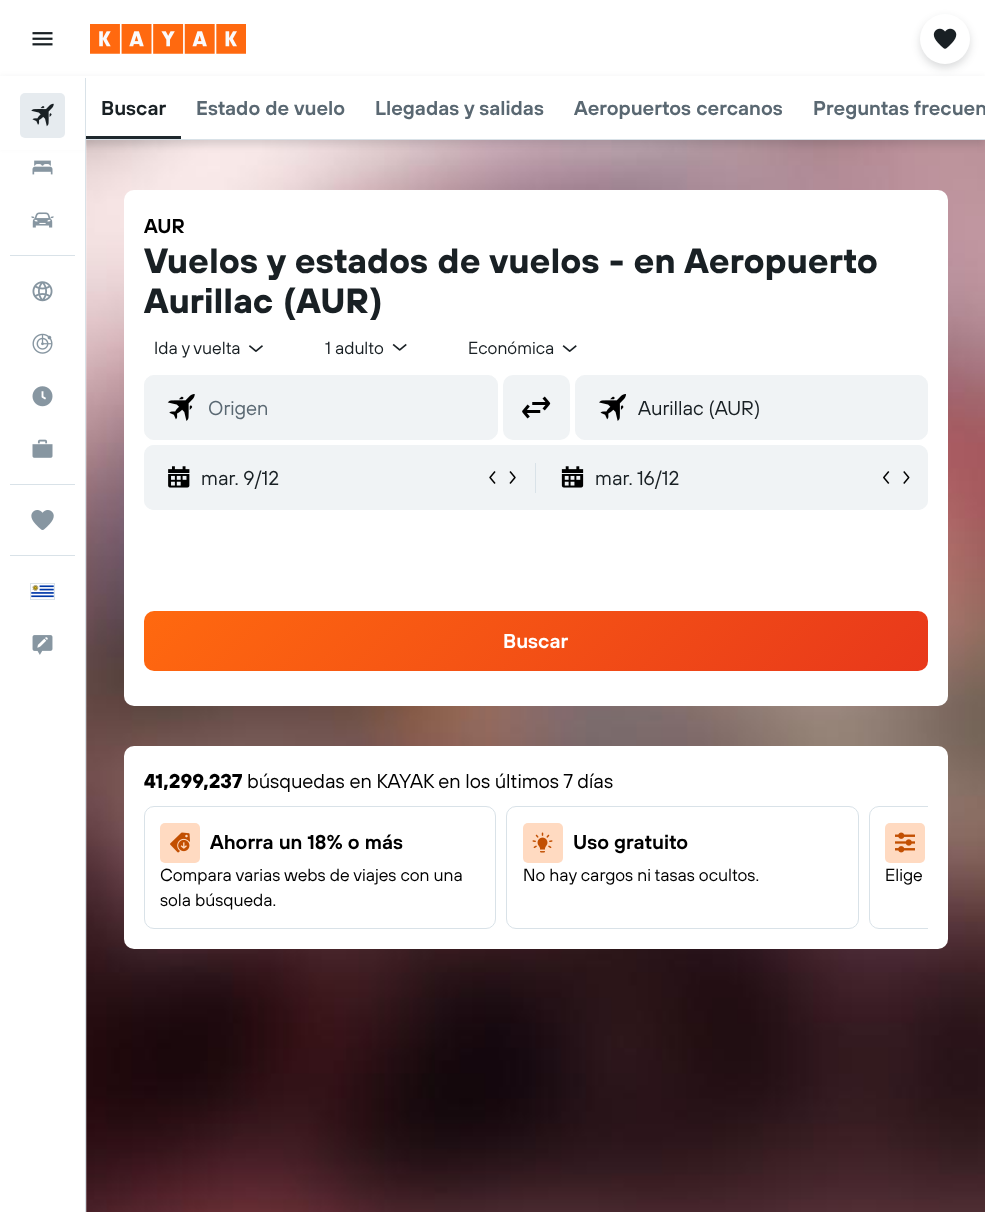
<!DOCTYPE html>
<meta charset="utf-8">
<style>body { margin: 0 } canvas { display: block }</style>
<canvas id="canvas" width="985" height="1212"></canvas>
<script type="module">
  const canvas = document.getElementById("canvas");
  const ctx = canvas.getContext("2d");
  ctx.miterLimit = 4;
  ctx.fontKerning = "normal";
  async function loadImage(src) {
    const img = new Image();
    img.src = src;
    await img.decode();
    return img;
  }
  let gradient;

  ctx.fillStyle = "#ffffff";
  ctx.fillRect(0, 0, 985, 1212);
  ctx.drawImage(await loadImage("img1.png"), 32, 32, 21, 14);
  ctx.drawImage(await loadImage("img2.png"), 90, 24, 156, 30);
  ctx.drawImage(await loadImage("img14.png"), 86, 140, 899, 1072);
  ctx.fillStyle = "rgba(25, 32, 36, 0.16)";
  ctx.filter = "blur(4px)";
  ctx.beginPath();
  ctx.rect(0, 80, 985, 64);
  ctx.fill();
  ctx.filter = "none";
  ctx.fillStyle = "#ffffff";
  ctx.fillRect(0, 76, 985, 63);
  ctx.fillStyle = "rgba(25, 32, 36, 0.16)";
  ctx.filter = "blur(4px)";
  ctx.beginPath();
  ctx.roundRect(920, 18, 50, 50, 25);
  ctx.fill();
  ctx.filter = "none";
  ctx.fillStyle = "#ffffff";
  ctx.beginPath();
  ctx.arc(945, 39, 25, 0, Math.PI * 2);
  ctx.fill();
  ctx.drawImage(await loadImage("img3.png"), 933, 28, 24, 21);
  ctx.fillRect(0, 139, 85, 11);
  ctx.fillStyle = "#d9e2e8";
  ctx.fillRect(85, 78, 1, 1134);
  ctx.fillStyle = "#e6ebef";
  ctx.beginPath();
  ctx.roundRect(20, 93, 45, 45, 5);
  ctx.fill();
  ctx.drawImage(await loadImage("img4.png"), 31, 103, 23, 24);
  ctx.drawImage(await loadImage("img5.png"), 32, 160, 21, 15);
  ctx.drawImage(await loadImage("img6.png"), 31, 212, 23, 16);
  ctx.fillStyle = "#d9e2e8";
  ctx.fillRect(10, 255, 65, 1);
  ctx.drawImage(await loadImage("img7.png"), 32, 281, 21, 21);
  ctx.drawImage(await loadImage("img8.png"), 32, 333, 21, 21);
  ctx.drawImage(await loadImage("img9.png"), 32, 386, 21, 21);
  ctx.drawImage(await loadImage("img10.png"), 32, 439, 21, 19);
  ctx.fillRect(10, 484, 65, 1);
  ctx.drawImage(await loadImage("img11.png"), 31, 510, 23, 20);
  ctx.fillRect(10, 555, 65, 1);
  ctx.strokeStyle = "#d9e2e8";
  ctx.strokeRect(30.5, 583.5, 24, 16);
  ctx.drawImage(await loadImage("img12.png"), 31, 584, 23, 14);
  ctx.drawImage(await loadImage("img13.png"), 32, 635, 21, 20);
  ctx.fillRect(86, 139, 899, 1);
  ctx.fillStyle = "#1f282d";
  ctx.fillRect(86, 136, 95, 3);
  ctx.font = "600 20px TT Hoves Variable";
  ctx.fillStyle = "#192024";
  ctx.fillText("Buscar", 101, 115);
  ctx.fillStyle = "#5a6872";
  ctx.fillText("Estado de vuelo", 196, 115);
  ctx.fillText("Llegadas y salidas", 375, 115);
  ctx.fillText("Aeropuertos cercanos", 574, 115);
  ctx.fillText("Preguntas frecuen", 813, 115);
  ctx.fillStyle = "#ffffff";
  ctx.beginPath();
  ctx.roundRect(124, 190, 824, 516, 10);
  ctx.fill();
  ctx.fillStyle = "#000000";
  ctx.fillText("AUR", 144, 233);
  ctx.font = "bold 35px TT Hoves Variable";
  ctx.fillStyle = "#192024";
  ctx.fillText("Vuelos y estados de vuelos - en Aeropuerto", 144, 273);
  ctx.fillText("Aurillac (AUR)", 144, 313);
  ctx.font = "17.5px TT Hoves Variable";
  ctx.fillText("Ida y vuelta", 154, 354);
  ctx.drawImage(await loadImage("img15.png"), 248, 345, 15, 7);
  ctx.fillText("1 adulto", 325, 354);
  ctx.drawImage(await loadImage("img16.png"), 392, 343, 15, 8);
  ctx.fillText("Económica", 468, 354);
  ctx.drawImage(await loadImage("img17.png"), 562, 345, 15, 7);
  ctx.fillStyle = "#f0f3f5";
  ctx.beginPath();
  ctx.roundRect(144.5, 375.5, 353, 64, 9.5);
  ctx.fill();
  ctx.strokeStyle = "#f0f3f5";
  ctx.stroke();
  ctx.drawImage(await loadImage("img18.png"), 167, 394, 28, 27);
  ctx.font = "20px TT Hoves Variable";
  ctx.fillStyle = "#5a6872";
  ctx.fillText("Origen", 208, 415);
  ctx.fillStyle = "#f0f3f5";
  ctx.beginPath();
  ctx.roundRect(503, 375, 67, 65, 10);
  ctx.fill();
  ctx.drawImage(await loadImage("img19.png"), 522, 396, 29, 23);
  ctx.beginPath();
  ctx.roundRect(575.5, 375.5, 352, 64, 9.5);
  ctx.fill();
  ctx.stroke();
  ctx.drawImage(await loadImage("img20.png"), 599, 394, 27, 27);
  ctx.fillStyle = "#192024";
  ctx.fillText("Aurillac (AUR)", 638, 415);
  ctx.fillStyle = "#f0f3f5";
  ctx.beginPath();
  ctx.roundRect(144, 445, 784, 65, 10);
  ctx.fill();
  ctx.beginPath();
  ctx.roundRect(144, 445, 390, 65, 10);
  ctx.fill();
  ctx.drawImage(await loadImage("img21.png"), 168, 466, 22, 22);
  ctx.fillStyle = "#192024";
  ctx.fillText("mar. 9/12", 201, 485);
  ctx.drawImage(await loadImage("img22.png"), 489, 471, 7, 13);
  ctx.drawImage(await loadImage("img23.png"), 509, 471, 7, 13);
  ctx.fillStyle = "#d9e2e8";
  ctx.fillRect(535, 463, 1, 30);
  ctx.fillStyle = "#f0f3f5";
  ctx.beginPath();
  ctx.roundRect(538, 445, 390, 65, 10);
  ctx.fill();
  ctx.drawImage(await loadImage("img24.png"), 561, 466, 23, 22);
  ctx.fillStyle = "#192024";
  ctx.fillText("mar. 16/12", 595, 485);
  ctx.drawImage(await loadImage("img25.png"), 883, 471, 7, 13);
  ctx.drawImage(await loadImage("img26.png"), 903, 471, 7, 13);
  gradient = ctx.createLinearGradient(325, 430, 747, 852);
  gradient.addColorStop(0, "#ff690f");
  gradient.addColorStop(1, "#e8381b");
  ctx.fillStyle = gradient;
  ctx.beginPath();
  ctx.roundRect(144, 611, 784, 60, 10);
  ctx.fill();
  ctx.font = "600 20px TT Hoves Variable";
  ctx.fillStyle = "#ffffff";
  ctx.fillText("Buscar", 503, 648);
  ctx.beginPath();
  ctx.roundRect(124, 746, 824, 203, 10);
  ctx.fill();
  ctx.font = "bold 20px TT Hoves Variable";
  ctx.fillStyle = "#000000";
  ctx.fillText("41,299,237", 144, 788);
  ctx.font = "20px TT Hoves Variable";
  ctx.fillText("búsquedas en KAYAK en los últimos 7 días", 247, 788);
  ctx.beginPath();
  ctx.roundRect(144.5, 806.5, 351, 122, 9.5);
  ctx.strokeStyle = "#d9e2e8";
  ctx.stroke();
  ctx.fillStyle = "#ffdac1";
  ctx.beginPath();
  ctx.roundRect(160, 823, 40, 40, 5);
  ctx.fill();
  ctx.drawImage(await loadImage("img27.png"), 170, 832, 20, 21);
  ctx.font = "600 20px TT Hoves Variable";
  ctx.fillStyle = "#000000";
  ctx.fillText("Ahorra un 18% o más", 210, 849);
  ctx.font = "17.5px TT Hoves Variable";
  ctx.fillText("Compara varias webs de viajes con una", 160, 881);
  ctx.fillText("sola búsqueda.", 160, 906);
  ctx.beginPath();
  ctx.roundRect(506.5, 806.5, 352, 122, 9.5);
  ctx.stroke();
  ctx.fillStyle = "#ffdac1";
  ctx.beginPath();
  ctx.roundRect(523, 823, 40, 40, 5);
  ctx.fill();
  ctx.drawImage(await loadImage("img28.png"), 532, 832, 21, 21);
  ctx.font = "600 20px TT Hoves Variable";
  ctx.fillStyle = "#000000";
  ctx.fillText("Uso gratuito", 573, 849);
  ctx.font = "17.5px TT Hoves Variable";
  ctx.fillText("No hay cargos ni tasas ocultos.", 523, 881);
  ctx.save();
  ctx.beginPath();
  ctx.rect(144, 806, 784, 123);
  ctx.clip();
  ctx.beginPath();
  ctx.roundRect(869.5, 806.5, 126, 122, 9.5);
  ctx.stroke();
  ctx.restore();
  ctx.fillStyle = "#ffdac1";
  ctx.beginPath();
  ctx.roundRect(885, 823, 40, 40, 5);
  ctx.fill();
  ctx.drawImage(await loadImage("img29.png"), 895, 832, 20, 21);
  ctx.fillStyle = "#000000";
  ctx.fillText("Elige", 885, 881);
</script>
